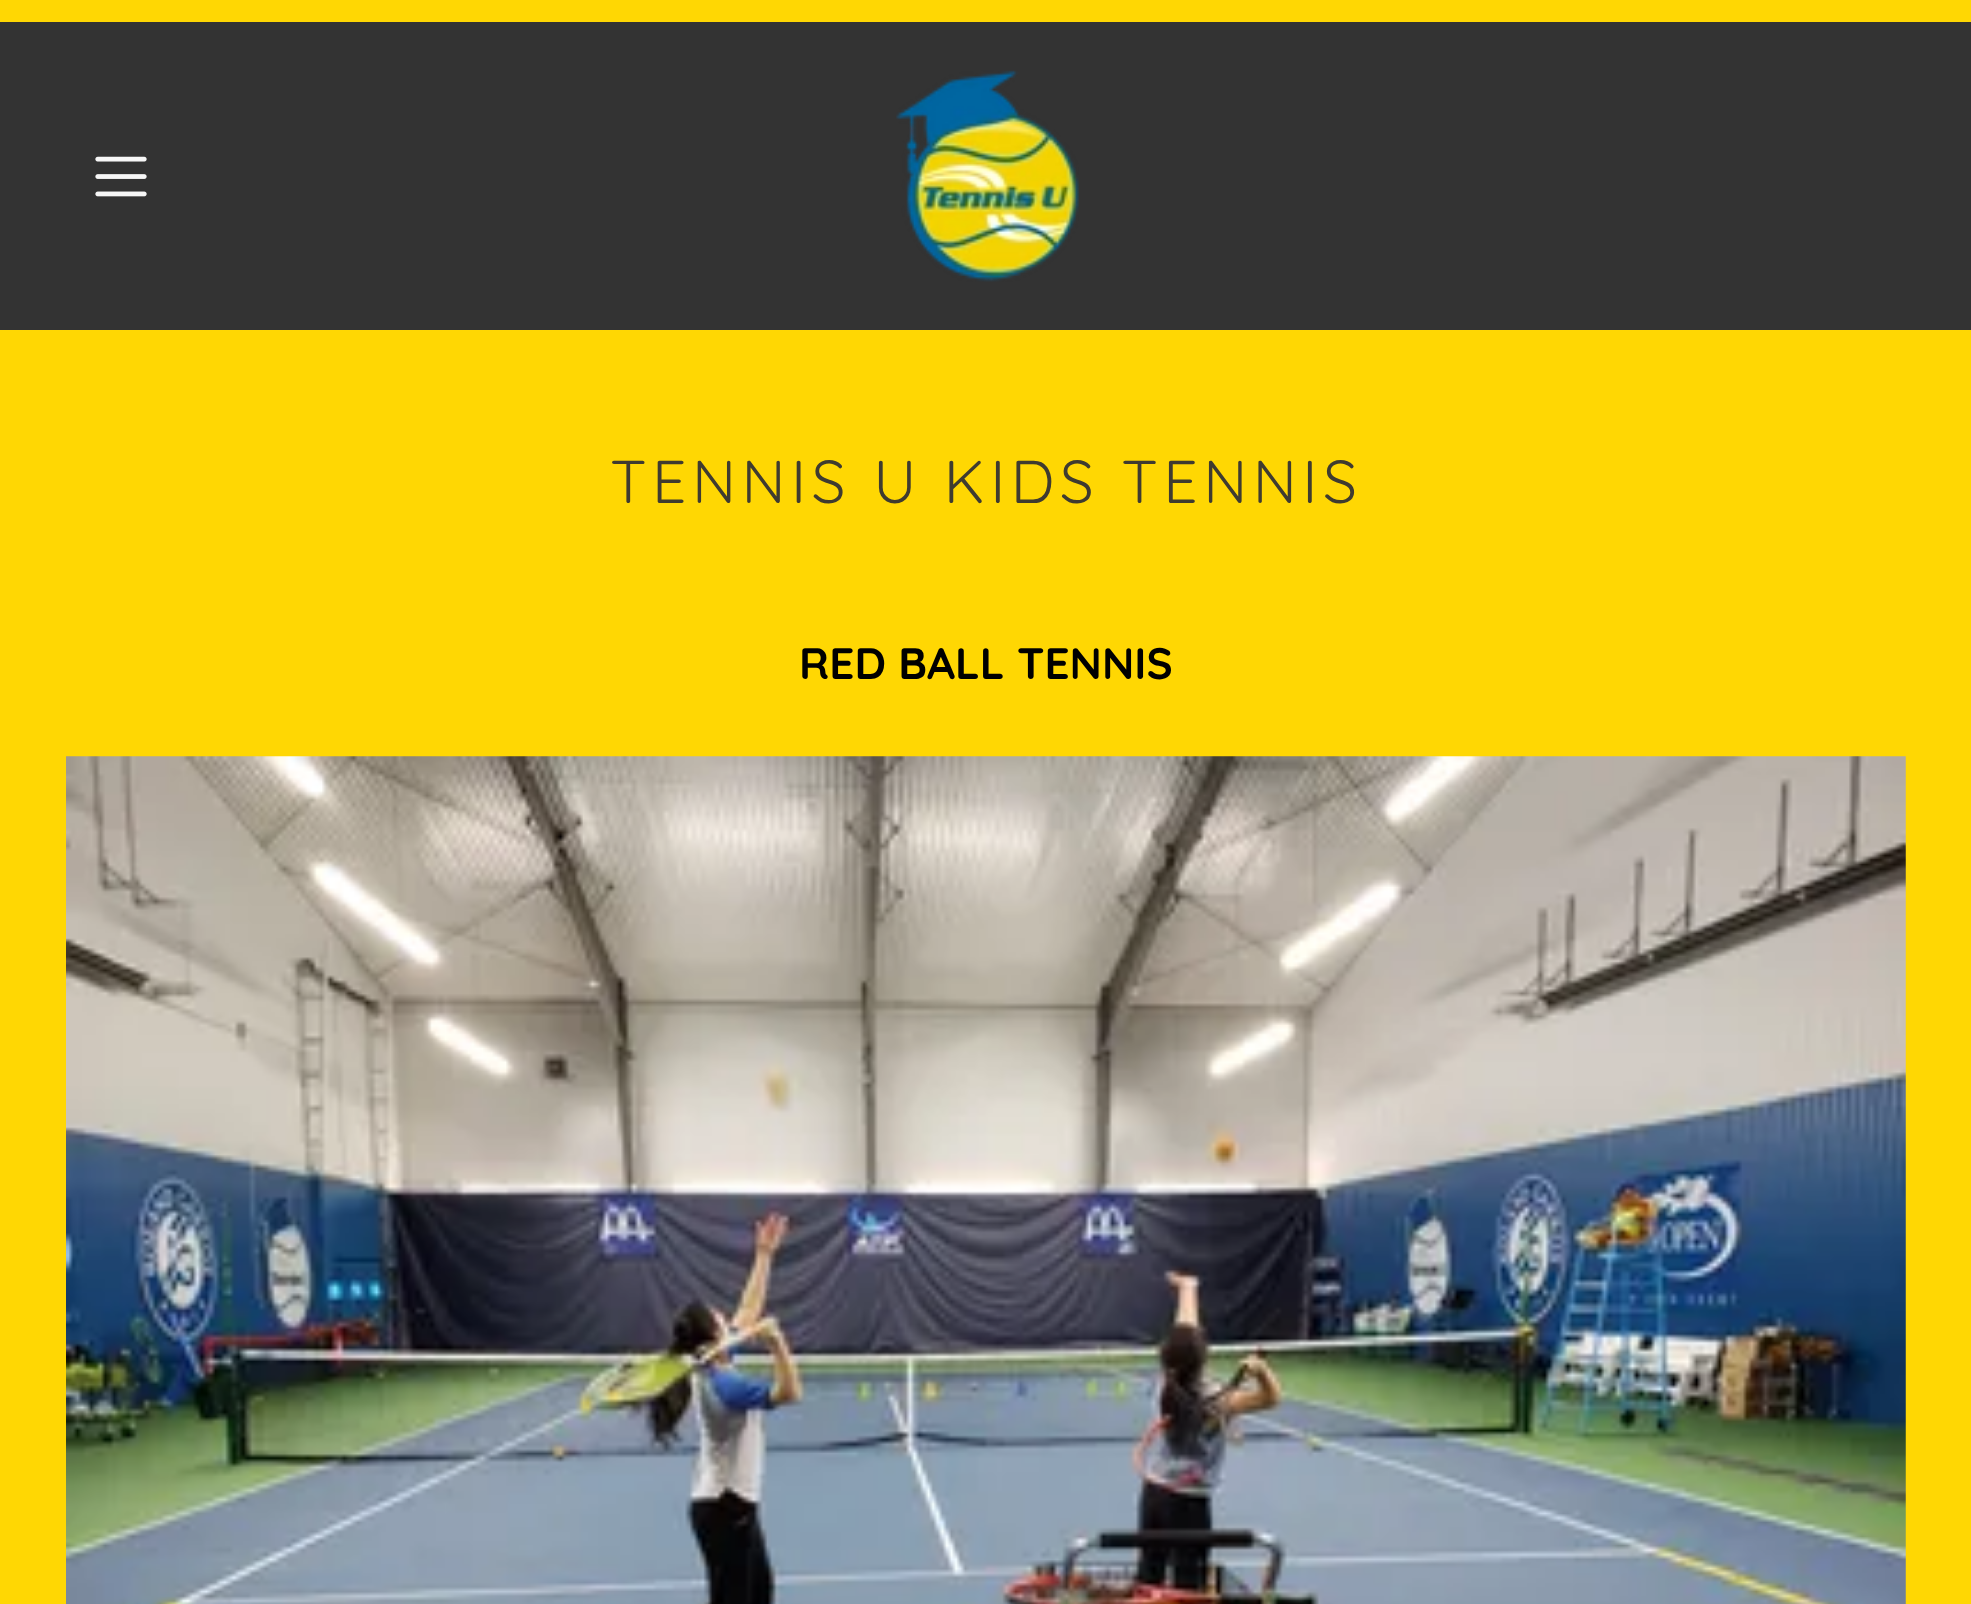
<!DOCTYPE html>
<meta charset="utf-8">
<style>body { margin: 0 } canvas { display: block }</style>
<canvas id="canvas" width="1971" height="1604"></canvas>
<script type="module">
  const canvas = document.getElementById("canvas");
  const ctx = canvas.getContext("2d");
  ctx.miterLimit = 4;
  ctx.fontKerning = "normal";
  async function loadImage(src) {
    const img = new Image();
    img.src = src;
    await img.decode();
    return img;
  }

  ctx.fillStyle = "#ffd703";
  ctx.fillRect(0, 0, 1971, 1604);
  ctx.fillStyle = "#333333";
  ctx.fillRect(0, 22, 1971, 308);
  ctx.drawImage(await loadImage("img1.png"), 95, 156, 52, 41);
  ctx.drawImage(await loadImage("img2.png"), 896, 70, 183, 212);
  ctx.letterSpacing = "5.5px";
  ctx.font = "60.5px Quicksand";
  ctx.fillStyle = "#3f3b30";
  ctx.fillText("TENNIS U KIDS TENNIS", 610, 503);
  ctx.letterSpacing = "0px";
  ctx.font = "bold 44px Quicksand";
  ctx.fillStyle = "#000000";
  ctx.fillText("RED BALL TENNIS", 799, 679);
  ctx.drawImage(await loadImage("img3.png"), 66, 756, 1840, 848);
</script>
